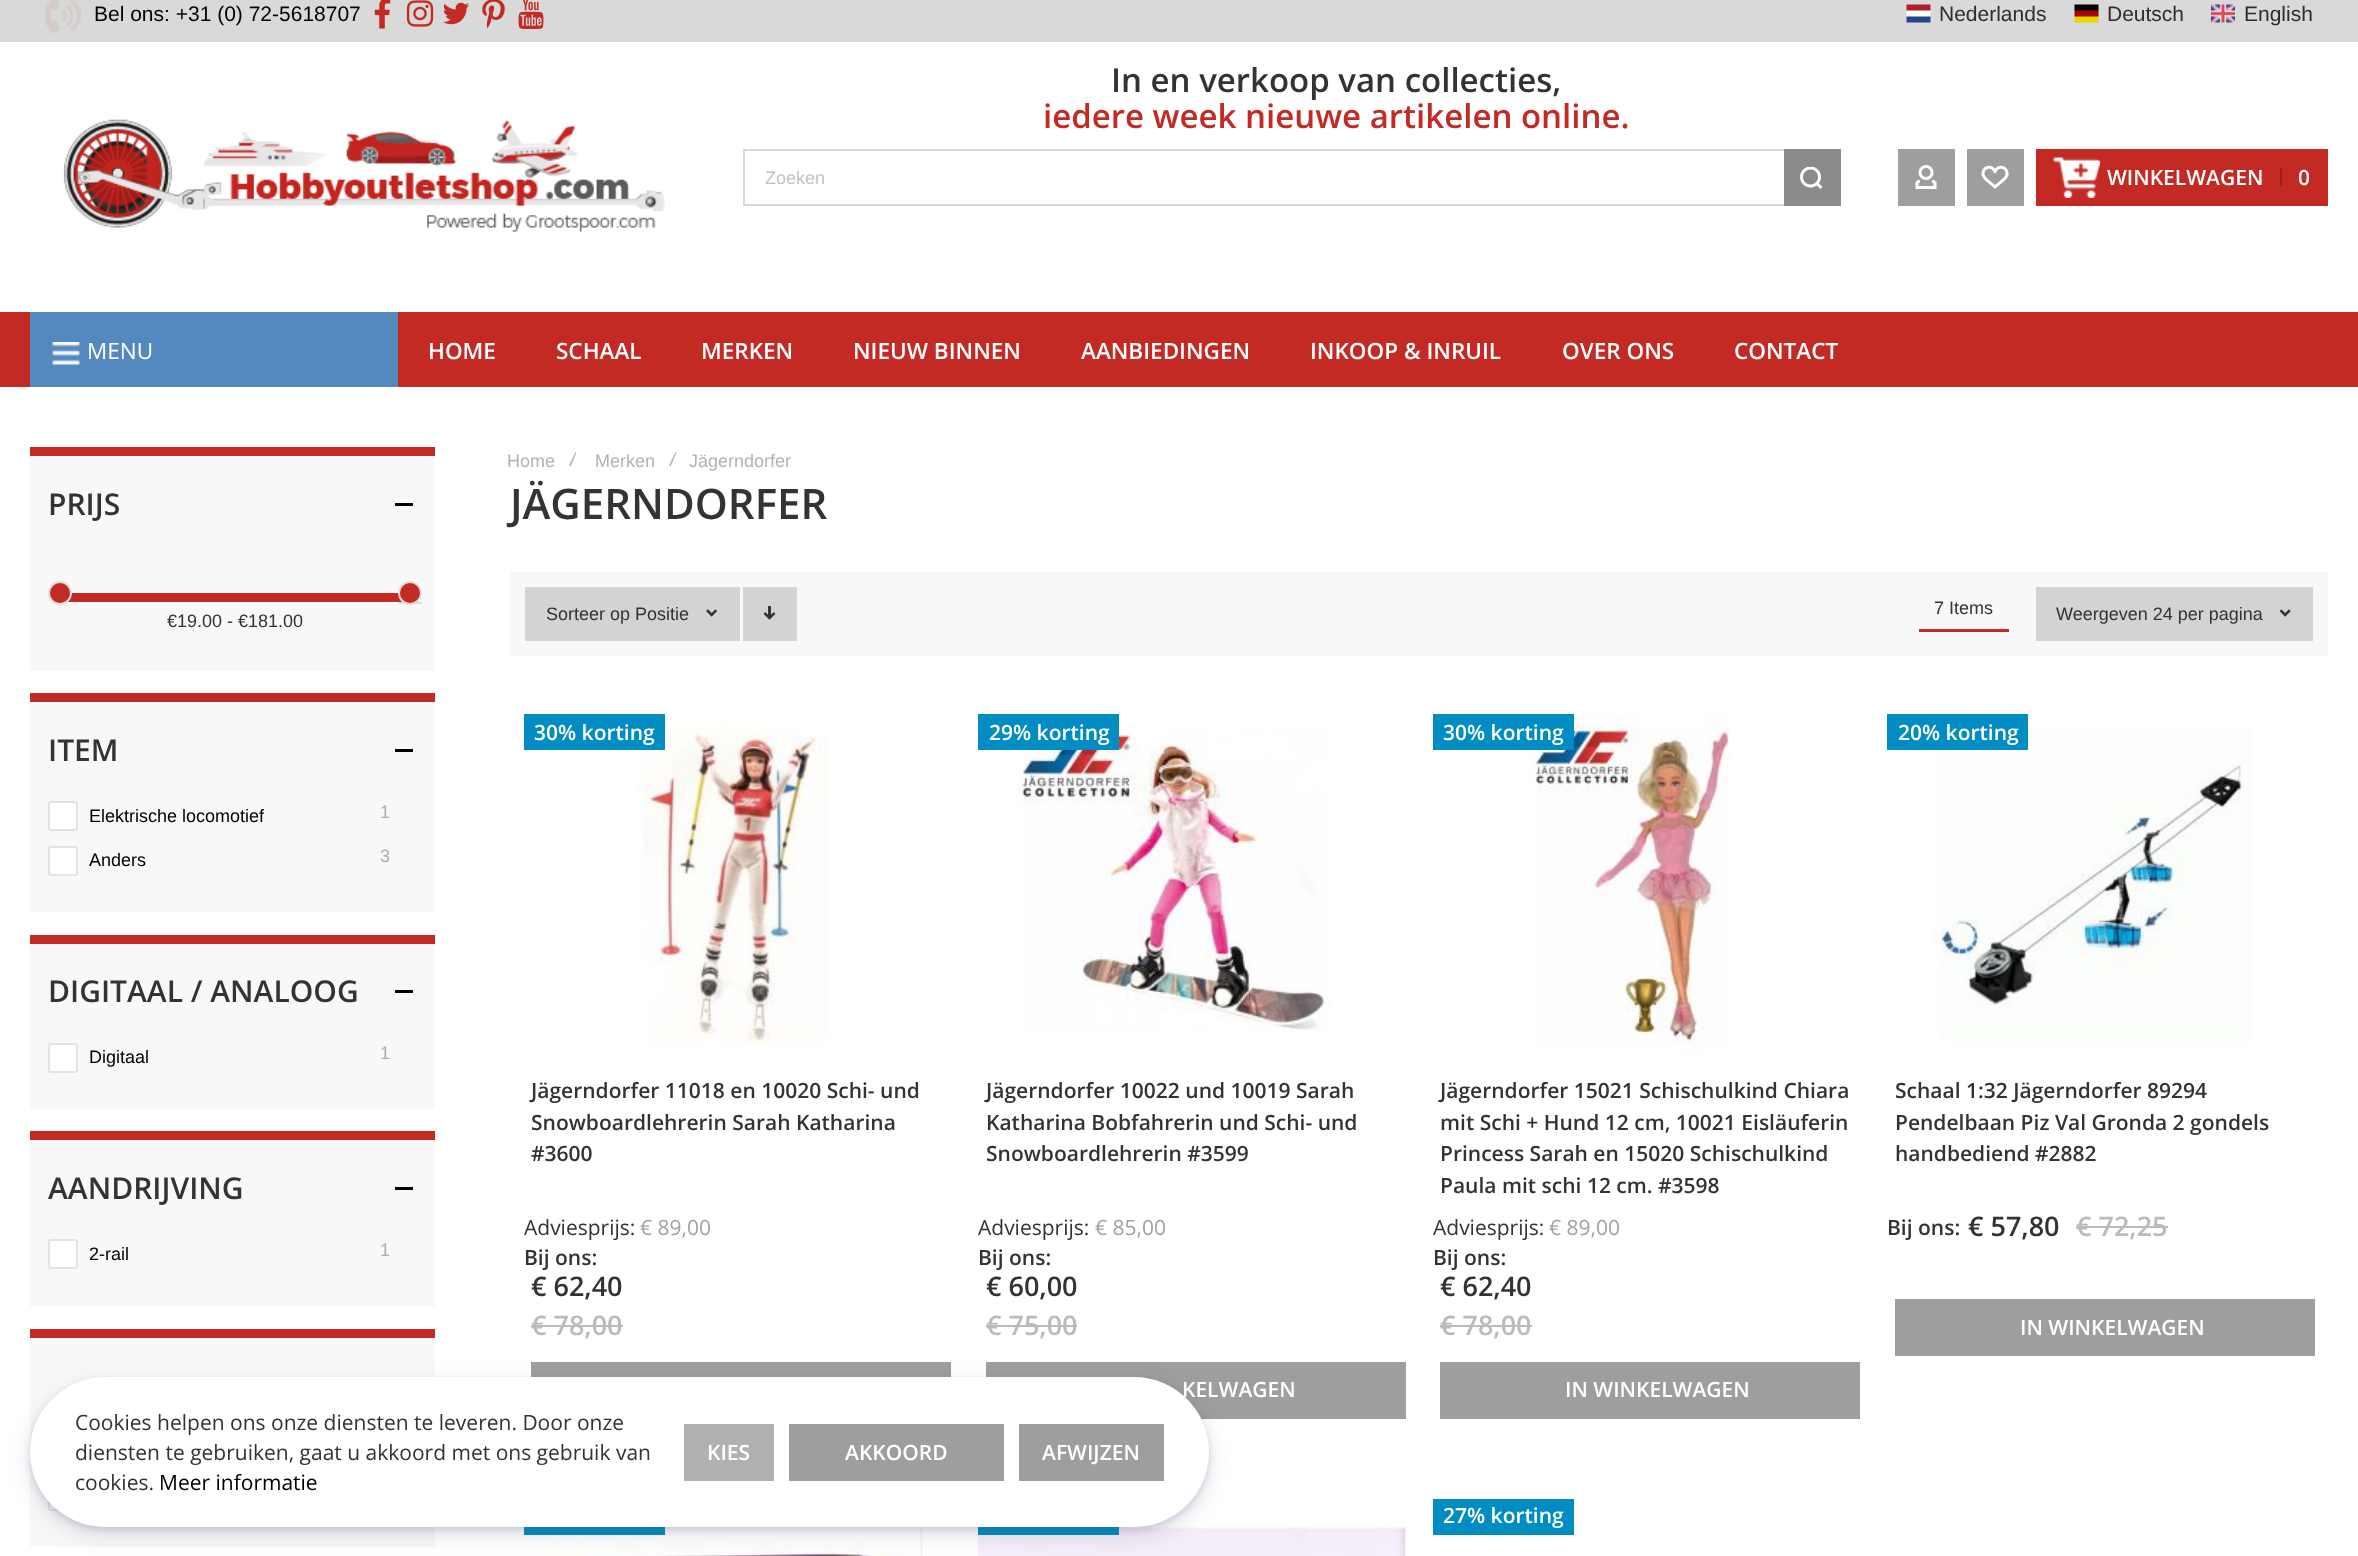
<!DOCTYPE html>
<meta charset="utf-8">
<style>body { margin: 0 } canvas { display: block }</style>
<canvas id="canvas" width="2358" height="1556"></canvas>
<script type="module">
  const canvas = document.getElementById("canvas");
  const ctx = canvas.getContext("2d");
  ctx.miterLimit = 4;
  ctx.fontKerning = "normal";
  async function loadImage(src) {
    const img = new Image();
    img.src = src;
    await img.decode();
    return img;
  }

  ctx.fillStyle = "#ffffff";
  ctx.fillRect(0, 0, 2358, 1556);
  ctx.fillStyle = "#d9d9d9";
  ctx.fillRect(0, 0, 2358, 42);
  ctx.drawImage(await loadImage("img1.png"), 45, 0, 36, 33);
  ctx.font = "21px Liberation Sans";
  ctx.fillStyle = "#000000";
  ctx.fillText("Bel ons: +31 (0) 72-5618707", 94, 21);
  ctx.drawImage(await loadImage("img2.png"), 374, 0, 17, 29);
  ctx.drawImage(await loadImage("img3.png"), 406, 0, 28, 27);
  ctx.drawImage(await loadImage("img4.png"), 443, 2, 26, 23);
  ctx.drawImage(await loadImage("img5.png"), 482, 0, 23, 29);
  ctx.font = "30px 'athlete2'";
  ctx.fillStyle = "#c22a23";
  ctx.fillText("4", 516, 29);
  ctx.drawImage(await loadImage("img6.png"), 1906, 4, 25, 19);
  ctx.font = "21px Liberation Sans";
  ctx.fillStyle = "#322c29";
  ctx.fillText("Nederlands", 1939, 21);
  ctx.drawImage(await loadImage("img7.png"), 2074, 4, 25, 19);
  ctx.fillText("Deutsch", 2107, 21);
  ctx.drawImage(await loadImage("img8.png"), 2211, 4, 24, 19);
  ctx.fillText("English", 2244, 21);
  ctx.drawImage(await loadImage("img9.png"), 63, 119, 602, 113);
  ctx.font = "600 33px Open Sans";
  ctx.fillStyle = "#333333";
  ctx.fillText("In en verkoop van collecties,", 1111, 92);
  ctx.fillStyle = "#c22a23";
  ctx.fillText("iedere week nieuwe artikelen online.", 1043, 128);
  ctx.strokeStyle = "#d9d9d9";
  ctx.lineWidth = 2;
  ctx.strokeRect(744, 150, 1096, 55);
  ctx.font = "18px Liberation Sans";
  ctx.fillStyle = "#c2c2c2";
  ctx.fillText("Zoeken", 765, 184);
  ctx.fillStyle = "#8b8b8b";
  ctx.fillRect(1784, 149, 57, 57);
  ctx.drawImage(await loadImage("img10.png"), 1800, 167, 23, 22);
  ctx.fillStyle = "#9e9e9e";
  ctx.fillRect(1898, 149, 57, 57);
  ctx.drawImage(await loadImage("img11.png"), 1915, 165, 22, 24);
  ctx.fillRect(1967, 149, 57, 57);
  ctx.drawImage(await loadImage("img12.png"), 1981, 165, 28, 24);
  ctx.fillStyle = "#c22a23";
  ctx.fillRect(2036, 149, 292, 57);
  ctx.drawImage(await loadImage("img13.png"), 2053, 157, 47, 41);
  ctx.font = "600 21px Open Sans";
  ctx.fillStyle = "#ffffff";
  ctx.fillText("WINKELWAGEN", 2107, 185);
  ctx.fillStyle = "#99211c";
  ctx.fillRect(2280, 168, 2, 18);
  ctx.fillStyle = "#ffffff";
  ctx.fillText("0", 2298, 185);
  ctx.fillStyle = "#c22a23";
  ctx.fillRect(0, 312, 2358, 75);
  ctx.fillStyle = "#5489bf";
  ctx.fillRect(30, 312, 368, 75);
  ctx.drawImage(await loadImage("img14.png"), 52, 342, 28, 23);
  ctx.font = "22.5px Open Sans";
  ctx.fillStyle = "#ffffff";
  ctx.fillText("MENU", 87, 359);
  ctx.font = "600 22.5px Open Sans";
  ctx.fillText("HOME", 428, 359);
  ctx.fillText("SCHAAL", 556, 359);
  ctx.fillText("MERKEN", 701, 359);
  ctx.fillText("NIEUW BINNEN", 853, 359);
  ctx.fillText("AANBIEDINGEN", 1081, 359);
  ctx.fillText("INKOOP & INRUIL", 1310, 359);
  ctx.fillText("OVER ONS", 1562, 359);
  ctx.fillText("CONTACT", 1734, 359);
  ctx.fillStyle = "#f8f8f8";
  ctx.fillRect(30, 456, 405, 215);
  ctx.fillStyle = "#c22a23";
  ctx.fillRect(30, 447, 405, 9);
  ctx.font = "600 30px Open Sans";
  ctx.fillStyle = "#333333";
  ctx.fillText("PRIJS", 48, 515);
  ctx.fillStyle = "#000000";
  ctx.fillRect(395, 503, 18, 3);
  ctx.fillStyle = "#c22a23";
  ctx.fillRect(67, 593, 336, 9);
  ctx.beginPath();
  ctx.arc(60, 593, 11, 0, Math.PI * 2);
  ctx.fill();
  ctx.strokeStyle = "#dfdedd";
  ctx.stroke();
  ctx.fillStyle = "#dfdedd";
  ctx.beginPath();
  ctx.roundRect(398, 602, 24, 2, 1);
  ctx.fill();
  ctx.fillStyle = "#c22a23";
  ctx.beginPath();
  ctx.arc(410, 593, 11, 0, Math.PI * 2);
  ctx.fill();
  ctx.stroke();
  ctx.font = "18px Liberation Sans";
  ctx.fillStyle = "#333333";
  ctx.fillText("€19.00 - €181.00", 167, 627);
  ctx.fillStyle = "#f8f8f8";
  ctx.fillRect(30, 702, 405, 210);
  ctx.fillStyle = "#c22a23";
  ctx.fillRect(30, 693, 405, 9);
  ctx.font = "600 30px Open Sans";
  ctx.fillStyle = "#333333";
  ctx.fillText("ITEM", 48, 761);
  ctx.fillStyle = "#000000";
  ctx.fillRect(395, 749, 18, 3);
  ctx.fillStyle = "#ffffff";
  ctx.beginPath();
  ctx.roundRect(49, 802, 28, 28, 2);
  ctx.fill();
  ctx.strokeStyle = "#e3e3e3";
  ctx.stroke();
  ctx.font = "18px Liberation Sans";
  ctx.fillStyle = "#000000";
  ctx.fillText("Elektrische locomotief", 89, 822);
  ctx.fillStyle = "#adadad";
  ctx.fillText("1", 380, 818);
  ctx.fillStyle = "#ffffff";
  ctx.beginPath();
  ctx.roundRect(49, 847, 28, 28, 2);
  ctx.fill();
  ctx.stroke();
  ctx.fillStyle = "#000000";
  ctx.fillText("Anders", 89, 866);
  ctx.fillStyle = "#adadad";
  ctx.fillText("3", 380, 862);
  ctx.fillStyle = "#f8f8f8";
  ctx.fillRect(30, 944, 405, 165);
  ctx.fillStyle = "#c22a23";
  ctx.fillRect(30, 935, 405, 9);
  ctx.font = "600 30px Open Sans";
  ctx.fillStyle = "#333333";
  ctx.fillText("DIGITAAL / ANALOOG", 48, 1002);
  ctx.fillStyle = "#000000";
  ctx.fillRect(395, 990, 18, 3);
  ctx.fillStyle = "#ffffff";
  ctx.beginPath();
  ctx.roundRect(49, 1044, 28, 28, 2);
  ctx.fill();
  ctx.stroke();
  ctx.font = "18px Liberation Sans";
  ctx.fillStyle = "#000000";
  ctx.fillText("Digitaal", 89, 1063);
  ctx.fillStyle = "#adadad";
  ctx.fillText("1", 380, 1059);
  ctx.fillStyle = "#f8f8f8";
  ctx.fillRect(30, 1140, 405, 167);
  ctx.fillStyle = "#c22a23";
  ctx.fillRect(30, 1131, 405, 9);
  ctx.font = "600 30px Open Sans";
  ctx.fillStyle = "#333333";
  ctx.fillText("AANDRIJVING", 48, 1199);
  ctx.fillStyle = "#000000";
  ctx.fillRect(395, 1187, 18, 3);
  ctx.fillStyle = "#ffffff";
  ctx.beginPath();
  ctx.roundRect(49, 1240, 28, 28, 2);
  ctx.fill();
  ctx.stroke();
  ctx.font = "18px Liberation Sans";
  ctx.fillStyle = "#000000";
  ctx.fillText("2-rail", 89, 1260);
  ctx.fillStyle = "#adadad";
  ctx.fillText("1", 380, 1256);
  ctx.fillStyle = "#f8f8f8";
  ctx.fillRect(30, 1338, 405, 209);
  ctx.fillStyle = "#c22a23";
  ctx.fillRect(30, 1329, 405, 9);
  ctx.fillStyle = "#ffffff";
  ctx.beginPath();
  ctx.roundRect(49, 1482, 28, 28, 2);
  ctx.fill();
  ctx.stroke();
  ctx.fillStyle = "#b3b3b3";
  ctx.fillText("Home", 507, 467);
  ctx.beginPath();
  ctx.moveTo(575.5, 452);
  ctx.lineTo(576.5, 452.5);
  ctx.lineTo(570.5, 466.5);
  ctx.lineTo(569, 465.5);
  ctx.closePath();
  ctx.fill();
  ctx.fillText("Merken", 595, 467);
  ctx.beginPath();
  ctx.moveTo(675.5, 452);
  ctx.lineTo(676.5, 452.5);
  ctx.lineTo(670.5, 466.5);
  ctx.lineTo(669, 465.5);
  ctx.closePath();
  ctx.fill();
  ctx.fillText("Jägerndorfer", 689, 467);
  ctx.font = "600 42px Open Sans";
  ctx.fillStyle = "#333333";
  ctx.fillText("JÄGERNDORFER", 510, 519);
  ctx.fillStyle = "#f8f8f8";
  ctx.fillRect(510, 572, 1818, 84);
  ctx.fillStyle = "#d3d3d3";
  ctx.fillRect(525, 587, 215, 54);
  ctx.font = "18px Liberation Sans";
  ctx.fillStyle = "#333333";
  ctx.fillText("Sorteer op Positie", 546, 620);
  ctx.drawImage(await loadImage("img15.png"), 706, 609, 11, 8);
  ctx.fillStyle = "#d3d3d3";
  ctx.fillRect(743, 587, 54, 54);
  ctx.drawImage(await loadImage("img16.png"), 763, 606, 13, 14);
  ctx.fillStyle = "#333333";
  ctx.fillText("7 Items", 1934, 614);
  ctx.fillStyle = "#c22a23";
  ctx.fillRect(1919, 629, 90, 3);
  ctx.fillStyle = "#d3d3d3";
  ctx.fillRect(2036, 587, 277, 54);
  ctx.fillStyle = "#333333";
  ctx.fillText("Weergeven 24 per pagina", 2056, 620);
  ctx.drawImage(await loadImage("img17.png"), 2279, 609, 12, 8);
  ctx.drawImage(await loadImage("img18.png"), 637, 726, 191, 321);
  ctx.fillStyle = "#018dc2";
  ctx.fillRect(524, 714, 141, 36);
  ctx.font = "600 21px Open Sans";
  ctx.fillStyle = "#ffffff";
  ctx.fillText("30% korting", 534, 740);
  ctx.fillStyle = "#333333";
  ctx.fillText("Jägerndorfer 11018 en 10020 Schi- und", 531, 1098);
  ctx.fillText("Snowboardlehrerin Sarah Katharina", 531, 1130);
  ctx.fillText("#3600", 531, 1161);
  ctx.font = "21px Open Sans";
  ctx.fillText("Adviesprijs:", 524, 1235);
  ctx.fillStyle = "#a1a1a2";
  ctx.fillText("€ 89,00", 640, 1235);
  ctx.font = "600 21px Open Sans";
  ctx.fillStyle = "#333333";
  ctx.fillText("Bij ons:", 524, 1265);
  ctx.font = "600 27px Open Sans";
  ctx.fillText("€ 62,40", 531, 1296);
  ctx.fillStyle = "#bbbbbb";
  ctx.fillText("€ 78,00", 531, 1335);
  ctx.fillRect(531, 1325, 92, 2);
  ctx.fillStyle = "#9e9e9e";
  ctx.fillRect(531, 1362, 420, 15);
  ctx.drawImage(await loadImage("img19.png"), 1018, 725, 313, 308);
  ctx.fillStyle = "#018dc2";
  ctx.fillRect(978, 714, 141, 36);
  ctx.font = "600 21px Open Sans";
  ctx.fillStyle = "#ffffff";
  ctx.fillText("29% korting", 989, 740);
  ctx.fillStyle = "#333333";
  ctx.fillText("Jägerndorfer 10022 und 10019 Sarah", 986, 1098);
  ctx.fillText("Katharina Bobfahrerin und Schi- und", 986, 1130);
  ctx.fillText("Snowboardlehrerin #3599", 986, 1161);
  ctx.font = "21px Open Sans";
  ctx.fillText("Adviesprijs:", 978, 1235);
  ctx.fillStyle = "#a1a1a2";
  ctx.fillText("€ 85,00", 1095, 1235);
  ctx.font = "600 21px Open Sans";
  ctx.fillStyle = "#333333";
  ctx.fillText("Bij ons:", 978, 1265);
  ctx.font = "600 27px Open Sans";
  ctx.fillText("€ 60,00", 986, 1296);
  ctx.fillStyle = "#bbbbbb";
  ctx.fillText("€ 75,00", 986, 1335);
  ctx.fillRect(986, 1325, 91, 2);
  ctx.fillStyle = "#9e9e9e";
  ctx.fillRect(986, 1362, 420, 57);
  ctx.font = "600 21px Open Sans";
  ctx.fillStyle = "#ffffff";
  ctx.fillText("KELWAGEN", 1182, 1397);
  ctx.drawImage(await loadImage("img20.png"), 1524, 714, 206, 342);
  ctx.fillStyle = "#018dc2";
  ctx.fillRect(1433, 714, 141, 36);
  ctx.fillStyle = "#ffffff";
  ctx.fillText("30% korting", 1443, 740);
  ctx.fillStyle = "#333333";
  ctx.fillText("Jägerndorfer 15021 Schischulkind Chiara", 1440, 1098);
  ctx.fillText("mit Schi + Hund 12 cm, 10021 Eisläuferin", 1440, 1130);
  ctx.fillText("Princess Sarah en 15020 Schischulkind", 1440, 1161);
  ctx.fillText("Paula mit schi 12 cm. #3598", 1440, 1193);
  ctx.font = "21px Open Sans";
  ctx.fillText("Adviesprijs:", 1433, 1235);
  ctx.fillStyle = "#a1a1a2";
  ctx.fillText("€ 89,00", 1549, 1235);
  ctx.font = "600 21px Open Sans";
  ctx.fillStyle = "#333333";
  ctx.fillText("Bij ons:", 1433, 1265);
  ctx.font = "600 27px Open Sans";
  ctx.fillText("€ 62,40", 1440, 1296);
  ctx.fillStyle = "#bbbbbb";
  ctx.fillText("€ 78,00", 1440, 1335);
  ctx.fillRect(1440, 1325, 92, 2);
  ctx.fillStyle = "#9e9e9e";
  ctx.fillRect(1440, 1362, 420, 57);
  ctx.font = "600 21px Open Sans";
  ctx.fillStyle = "#ffffff";
  ctx.fillText("IN WINKELWAGEN", 1565, 1397);
  ctx.drawImage(await loadImage("img21.png"), 1933, 728, 319, 314);
  ctx.fillStyle = "#018dc2";
  ctx.fillRect(1887, 714, 141, 36);
  ctx.fillStyle = "#ffffff";
  ctx.fillText("20% korting", 1898, 740);
  ctx.fillStyle = "#333333";
  ctx.fillText("Schaal 1:32 Jägerndorfer 89294", 1895, 1098);
  ctx.fillText("Pendelbaan Piz Val Gronda 2 gondels", 1895, 1130);
  ctx.fillText("handbediend #2882", 1895, 1161);
  ctx.fillText("Bij ons:", 1887, 1235);
  ctx.font = "600 27px Open Sans";
  ctx.fillText("€ 57,80", 1968, 1236);
  ctx.fillStyle = "#bbbbbb";
  ctx.fillText("€ 72,25", 2076, 1236);
  ctx.fillRect(2076, 1226, 92, 2);
  ctx.fillStyle = "#9e9e9e";
  ctx.fillRect(1895, 1299, 420, 57);
  ctx.font = "600 21px Open Sans";
  ctx.fillStyle = "#ffffff";
  ctx.fillText("IN WINKELWAGEN", 2020, 1335);
  ctx.fillStyle = "#018dc2";
  ctx.fillRect(1433, 1499, 141, 36);
  ctx.fillStyle = "#ffffff";
  ctx.fillText("27% korting", 1443, 1523);
  ctx.drawImage(await loadImage("img22.png"), 546, 1527, 377, 29);
  ctx.fillStyle = "#018dc2";
  ctx.fillRect(524, 1527, 141, 8);
  ctx.drawImage(await loadImage("img23.png"), 978, 1522, 428, 34);
  ctx.fillRect(978, 1527, 141, 8);
  ctx.fillStyle = "rgba(93, 100, 148, 0.2)";
  ctx.filter = "blur(3px)";
  ctx.beginPath();
  ctx.roundRect(30, 1380, 1179, 150, 75);
  ctx.fill();
  ctx.filter = "none";
  ctx.fillStyle = "rgba(37, 44, 97, 0.15)";
  ctx.filter = "blur(11px)";
  ctx.beginPath();
  ctx.roundRect(30, 1385, 1179, 150, 75);
  ctx.fill();
  ctx.filter = "none";
  ctx.fillStyle = "#ffffff";
  ctx.beginPath();
  ctx.roundRect(30, 1377, 1179, 150, 75);
  ctx.fill();
  ctx.font = "21px Open Sans";
  ctx.fillStyle = "#333333";
  ctx.fillText("Cookies helpen ons onze diensten te leveren. Door onze", 75, 1430);
  ctx.fillText("diensten te gebruiken, gaat u akkoord met ons gebruik van", 75, 1460);
  ctx.fillText("cookies.", 75, 1490);
  ctx.fillStyle = "#000000";
  ctx.fillText("Meer informatie", 159, 1490);
  ctx.fillStyle = "#b1b1b1";
  ctx.fillRect(684, 1424, 90, 57);
  ctx.font = "600 21px Open Sans";
  ctx.fillStyle = "#ffffff";
  ctx.fillText("KIES", 707, 1460);
  ctx.fillStyle = "#9e9e9e";
  ctx.fillRect(789, 1424, 215, 57);
  ctx.fillStyle = "#ffffff";
  ctx.fillText("AKKOORD", 845, 1460);
  ctx.fillStyle = "#9e9e9e";
  ctx.fillRect(1019, 1424, 145, 57);
  ctx.fillStyle = "#ffffff";
  ctx.fillText("AFWIJZEN", 1042, 1460);
</script>
